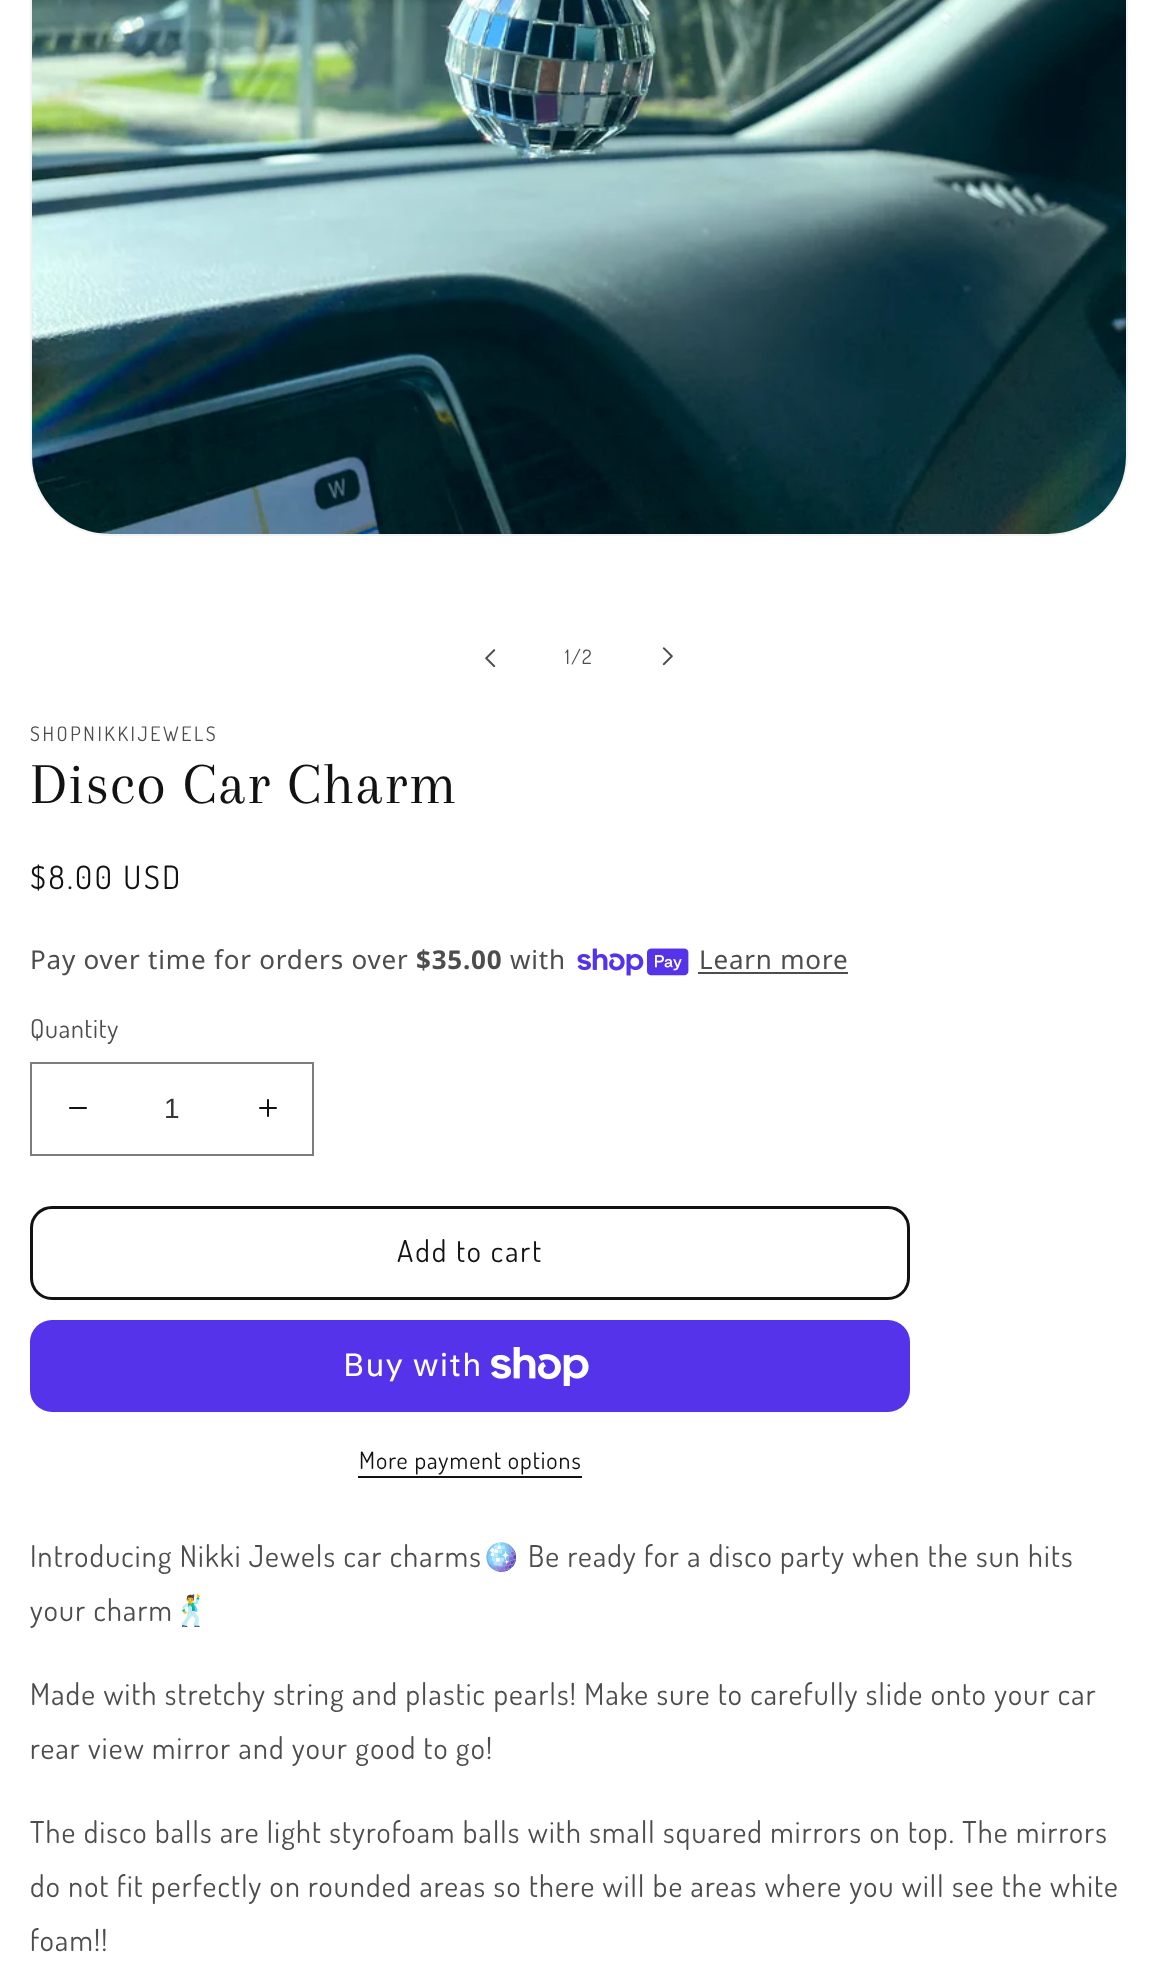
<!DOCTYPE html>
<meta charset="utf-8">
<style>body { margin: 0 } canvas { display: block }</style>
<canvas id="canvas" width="1157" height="1972"></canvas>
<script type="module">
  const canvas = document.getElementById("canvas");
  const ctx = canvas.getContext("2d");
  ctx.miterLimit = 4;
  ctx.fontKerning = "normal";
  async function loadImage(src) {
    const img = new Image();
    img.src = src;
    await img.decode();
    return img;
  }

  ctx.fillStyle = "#ffffff";
  ctx.fillRect(0, 0, 1157, 1972);
  ctx.beginPath();
  ctx.roundRect(31, -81, 1096, 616, 79);
  ctx.strokeStyle = "#f3f3f3";
  ctx.lineWidth = 2;
  ctx.stroke();
  ctx.drawImage(await loadImage("img1.png"), 32, 0, 1094, 534);
  ctx.drawImage(await loadImage("img2.png"), 485, 649, 11, 18);
  ctx.letterSpacing = "1.5px";
  ctx.font = "20px Dosis";
  ctx.fillStyle = "#4d4d4d";
  ctx.fillText("1/2", 565, 664);
  ctx.drawImage(await loadImage("img3.png"), 662, 647, 11, 19);
  ctx.letterSpacing = "2.6px";
  ctx.fillText("SHOPNIKKIJEWELS", 30, 741);
  ctx.letterSpacing = "1.2px";
  ctx.font = "60px Arapey";
  ctx.fillStyle = "#121212";
  ctx.fillText("Disco Car Charm", 30, 803);
  ctx.letterSpacing = "2.6px";
  ctx.font = "32px Dosis";
  ctx.fillText("$8.00 USD", 30, 889);
  ctx.letterSpacing = "0.8px";
  ctx.font = "26px Noto Sans";
  ctx.fillStyle = "#4d4d4d";
  ctx.fillText("Pay over time for orders over", 30, 969);
  ctx.font = "bold 26px Noto Sans";
  ctx.fillText("$35.00", 416, 969);
  ctx.font = "26px Noto Sans";
  ctx.fillText("with", 510, 969);
  ctx.drawImage(await loadImage("img4.png"), 577, 948, 112, 28);
  ctx.fillText("Learn more", 699, 969);
  ctx.fillRect(698, 972, 150, 2);
  ctx.font = "26px Dosis";
  ctx.fillText("Quantity", 30, 1038);
  ctx.drawImage(await loadImage("img5.png"), 69, 1107, 18, 2);
  ctx.drawImage(await loadImage("img6.png"), 259, 1099, 18, 18);
  ctx.strokeStyle = "#7d7d7d";
  ctx.strokeRect(31, 1063, 282, 92);
  ctx.letterSpacing = "0px";
  ctx.font = "28px Liberation Sans";
  ctx.fillStyle = "#363636";
  ctx.fillText("1", 164, 1118);
  ctx.beginPath();
  ctx.roundRect(31.5, 1207.5, 877, 91, 20.5);
  ctx.strokeStyle = "#121212";
  ctx.lineWidth = 3;
  ctx.stroke();
  ctx.letterSpacing = "2px";
  ctx.font = "30px Dosis";
  ctx.fillStyle = "#121212";
  ctx.fillText("Add to cart", 397, 1262);
  ctx.fillStyle = "#5433eb";
  ctx.beginPath();
  ctx.roundRect(30, 1320, 880, 92, 22);
  ctx.fill();
  ctx.letterSpacing = "1.2px";
  ctx.font = "32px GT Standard";
  ctx.fillStyle = "#ffffff";
  ctx.fillText("Buy with", 343, 1376);
  ctx.drawImage(await loadImage("img7.png"), 491, 1347, 98, 39);
  ctx.letterSpacing = "1px";
  ctx.font = "24px Dosis";
  ctx.fillStyle = "#121212";
  ctx.fillText("More payment options", 359, 1469);
  ctx.fillRect(358, 1476, 224, 2);
  ctx.letterSpacing = "1.2px";
  ctx.font = "30px Dosis";
  ctx.fillStyle = "#4d4d4d";
  ctx.fillText("Introducing Nikki Jewels car charms", 30, 1567);
  ctx.font = "30px Noto Color Emoji";
  ctx.fillText("🪩", 482, 1567);
  ctx.font = "30px Dosis";
  ctx.fillText("Be ready for a disco party when the sun hits", 528, 1567);
  ctx.fillText("your charm", 30, 1621);
  ctx.font = "30px Noto Color Emoji";
  ctx.fillText("🕺", 173, 1621);
  ctx.font = "30px Dosis";
  ctx.fillText("Made with stretchy string and plastic pearls! Make sure to carefully slide onto your car", 30, 1705);
  ctx.fillText("rear view mirror and your good to go!", 30, 1759);
  ctx.fillText("The disco balls are light styrofoam balls with small squared mirrors on top. The mirrors", 30, 1843);
  ctx.fillText("do not fit perfectly on rounded areas so there will be areas where you will see the white", 30, 1897);
  ctx.fillText("foam!!", 30, 1951);
</script>
